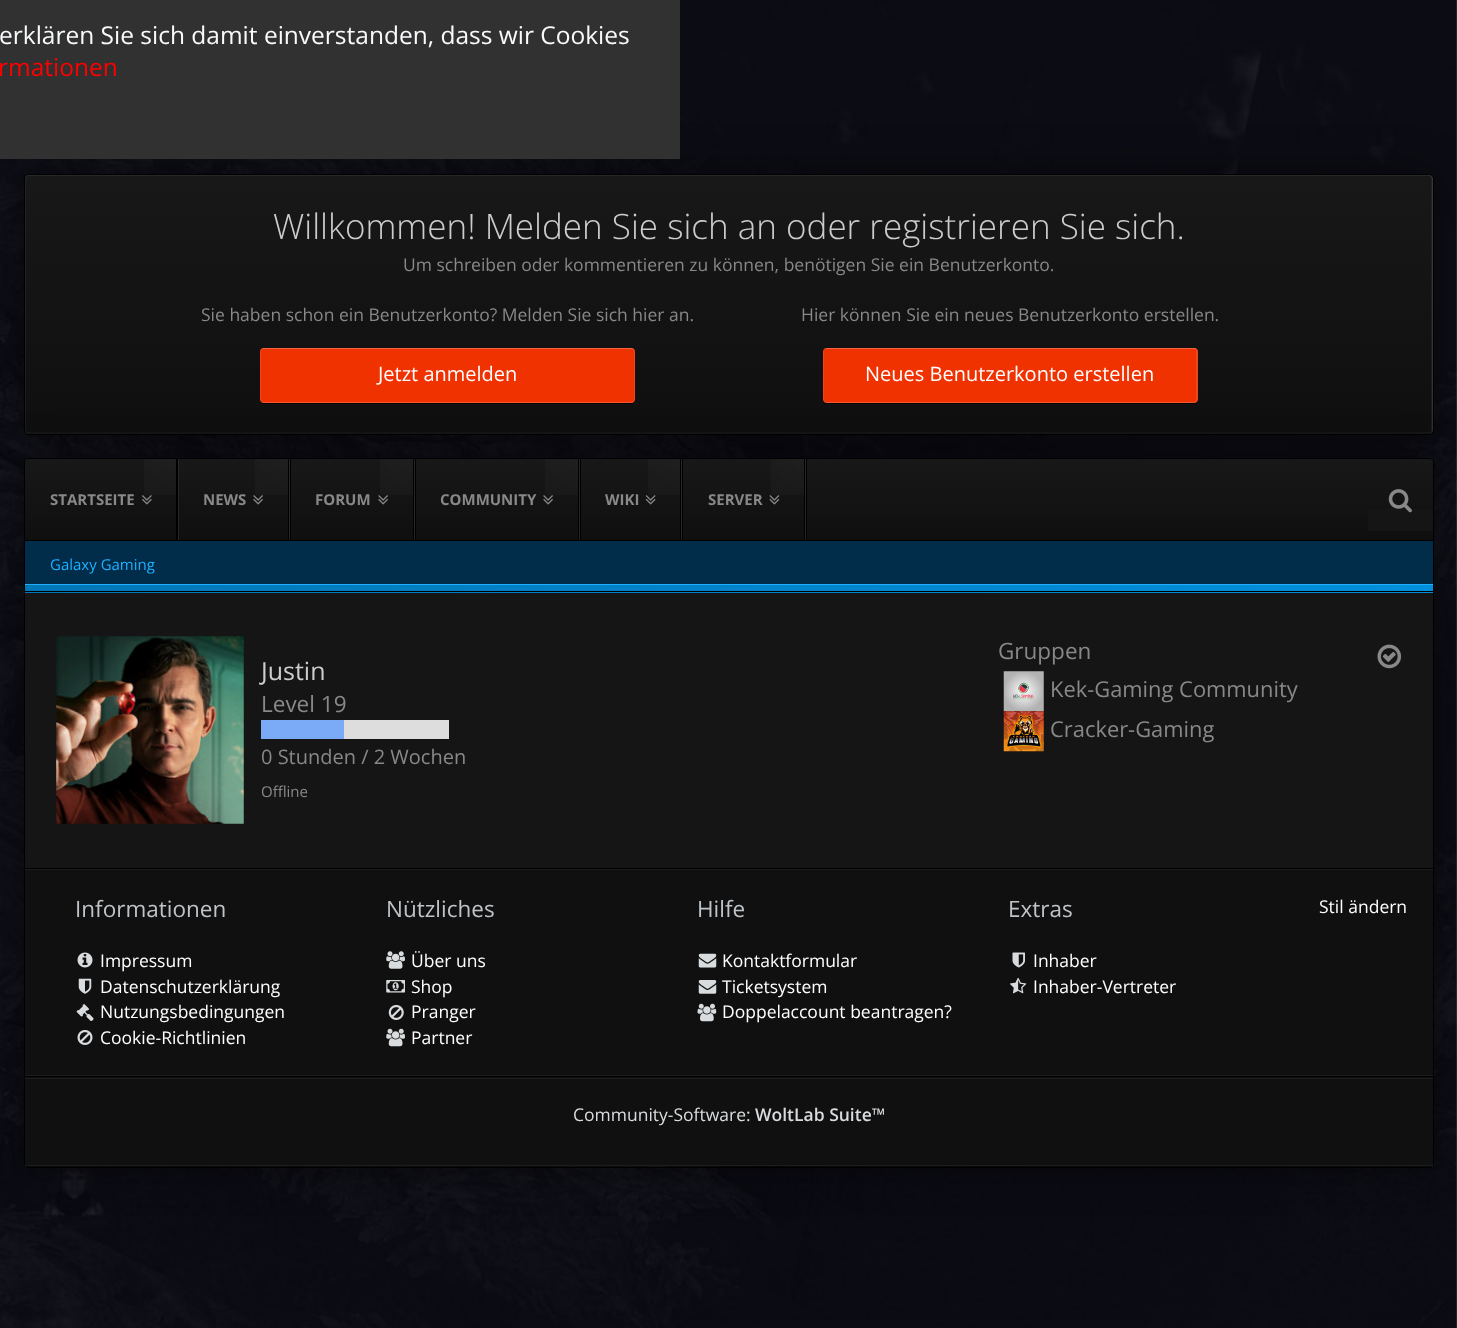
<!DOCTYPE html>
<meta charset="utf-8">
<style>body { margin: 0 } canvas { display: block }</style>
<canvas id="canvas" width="1457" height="1328"></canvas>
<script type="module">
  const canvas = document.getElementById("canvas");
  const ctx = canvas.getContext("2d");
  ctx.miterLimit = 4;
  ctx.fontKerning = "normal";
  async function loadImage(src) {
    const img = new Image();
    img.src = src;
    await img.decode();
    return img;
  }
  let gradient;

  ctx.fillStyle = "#ffffff";
  ctx.fillRect(0, 0, 1457, 1328);
  ctx.drawImage(await loadImage("img1.png"), 0, 0, 1457, 1328);
  ctx.fillStyle = "rgba(0, 0, 0, 0.5)";
  ctx.filter = "blur(22px)";
  ctx.beginPath();
  ctx.roundRect(25, 175, 1408, 259, 4);
  ctx.fill();
  ctx.filter = "none";
  ctx.fillStyle = "#313131";
  ctx.fillRect(0, 0, 680, 159);
  ctx.font = "24.5px Open Sans";
  ctx.fillStyle = "#f9fafc";
  ctx.fillText("erklären Sie sich damit einverstanden, dass wir Cookies", -1, 44);
  ctx.fillStyle = "#ff0000";
  ctx.fillText("rmationen", -2, 76);
  ctx.beginPath();
  ctx.roundRect(24.5, 174.5, 1409, 260, 4.5);
  ctx.strokeStyle = "rgba(0, 0, 0, 0.9)";
  ctx.stroke();
  gradient = ctx.createLinearGradient(729, 175, 729, 434);
  gradient.addColorStop(0, "#181818");
  gradient.addColorStop(1, "#0f0f0f");
  ctx.fillStyle = gradient;
  ctx.beginPath();
  ctx.roundRect(25, 175, 1408, 259, 4);
  ctx.fill();
  ctx.fillStyle = "rgba(255, 255, 255, 0.03)";
  ctx.beginPath();
  ctx.moveTo(25, 429);
  ctx.lineTo(25, 430);
  ctx.bezierCurveTo(25, 432, 27, 434, 29, 434);
  ctx.lineTo(1429, 434);
  ctx.bezierCurveTo(1431, 434, 1433, 432, 1433, 430);
  ctx.lineTo(1433, 179);
  ctx.bezierCurveTo(1433, 178, 1433, 177, 1432, 176);
  ctx.lineTo(1432, 429);
  ctx.bezierCurveTo(1432, 431, 1431, 432, 1429, 432);
  ctx.lineTo(29, 432);
  ctx.bezierCurveTo(27, 432, 25, 431, 25, 429);
  ctx.closePath();
  ctx.fill();
  ctx.fillStyle = "rgba(255, 255, 255, 0.07)";
  ctx.beginPath();
  ctx.moveTo(29, 176);
  ctx.lineTo(1429, 176);
  ctx.bezierCurveTo(1431, 176, 1432, 178, 1432, 180);
  ctx.lineTo(1432, 431);
  ctx.lineTo(1432, 433);
  ctx.bezierCurveTo(1432, 432, 1433, 431, 1433, 430);
  ctx.lineTo(1433, 179);
  ctx.bezierCurveTo(1433, 177, 1431, 175, 1429, 175);
  ctx.lineTo(29, 175);
  ctx.bezierCurveTo(27, 175, 25, 177, 25, 179);
  ctx.lineTo(25, 180);
  ctx.bezierCurveTo(25, 178, 27, 176, 29, 176);
  ctx.closePath();
  ctx.fill();
  ctx.fillStyle = "rgba(255, 255, 255, 0.05)";
  ctx.beginPath();
  ctx.moveTo(1428, 434);
  ctx.lineTo(1429, 434);
  ctx.bezierCurveTo(1431, 434, 1433, 432, 1433, 430);
  ctx.lineTo(1433, 179);
  ctx.bezierCurveTo(1433, 177, 1431, 175, 1429, 175);
  ctx.lineTo(1428, 175);
  ctx.bezierCurveTo(1430, 175, 1431, 177, 1431, 179);
  ctx.lineTo(1431, 430);
  ctx.bezierCurveTo(1431, 432, 1430, 434, 1428, 434);
  ctx.closePath();
  ctx.fill();
  ctx.beginPath();
  ctx.moveTo(29, 175);
  ctx.bezierCurveTo(27, 175, 25, 177, 25, 179);
  ctx.lineTo(25, 430);
  ctx.bezierCurveTo(25, 433, 27, 434, 30, 434);
  ctx.bezierCurveTo(28, 434, 26, 432, 26, 430);
  ctx.lineTo(26, 179);
  ctx.bezierCurveTo(26, 177, 28, 175, 30, 175);
  ctx.closePath();
  ctx.fill();
  ctx.font = "300 35px Open Sans";
  ctx.fillStyle = "#cccccc";
  ctx.fillText("Willkommen! Melden Sie sich an oder registrieren Sie sich.", 273, 239);
  ctx.font = "17.5px Open Sans";
  ctx.fillStyle = "#888888";
  ctx.fillText("Um schreiben oder kommentieren zu können, benötigen Sie ein Benutzerkonto.", 403, 271);
  ctx.fillText("Sie haben schon ein Benutzerkonto? Melden Sie sich hier an.", 201, 321);
  ctx.fillStyle = "#000000";
  ctx.beginPath();
  ctx.moveTo(260, 399);
  ctx.bezierCurveTo(260, 401, 261, 404, 264, 404);
  ctx.lineTo(631, 404);
  ctx.bezierCurveTo(634, 404, 635, 401, 635, 399);
  ctx.bezierCurveTo(635, 401, 633, 402, 631, 402);
  ctx.lineTo(264, 402);
  ctx.bezierCurveTo(262, 402, 260, 401, 260, 399);
  ctx.closePath();
  ctx.fill();
  ctx.fillStyle = "#f03100";
  ctx.beginPath();
  ctx.roundRect(260, 348, 375, 55, 4);
  ctx.fill();
  ctx.fillStyle = "rgba(255, 255, 255, 0.1)";
  ctx.beginPath();
  ctx.moveTo(264, 348);
  ctx.bezierCurveTo(262, 348, 260, 350, 260, 352);
  ctx.lineTo(260, 399);
  ctx.bezierCurveTo(260, 401, 262, 403, 264, 403);
  ctx.lineTo(631, 403);
  ctx.bezierCurveTo(632, 403, 633, 403, 634, 402);
  ctx.lineTo(265, 402);
  ctx.bezierCurveTo(263, 402, 261, 401, 261, 399);
  ctx.lineTo(261, 351);
  ctx.bezierCurveTo(261, 349, 263, 348, 265, 348);
  ctx.closePath();
  ctx.fill();
  ctx.beginPath();
  ctx.moveTo(261, 402);
  ctx.bezierCurveTo(262, 403, 263, 403, 264, 403);
  ctx.lineTo(631, 403);
  ctx.bezierCurveTo(633, 403, 635, 401, 635, 399);
  ctx.lineTo(635, 352);
  ctx.bezierCurveTo(635, 350, 633, 348, 631, 348);
  ctx.lineTo(630, 348);
  ctx.bezierCurveTo(632, 348, 634, 349, 634, 351);
  ctx.lineTo(634, 399);
  ctx.bezierCurveTo(634, 401, 632, 402, 630, 402);
  ctx.closePath();
  ctx.fill();
  ctx.fillStyle = "rgba(255, 255, 255, 0.25)";
  ctx.beginPath();
  ctx.moveTo(264, 349);
  ctx.lineTo(631, 349);
  ctx.bezierCurveTo(633, 349, 635, 350, 635, 352);
  ctx.bezierCurveTo(635, 350, 633, 348, 631, 348);
  ctx.lineTo(264, 348);
  ctx.bezierCurveTo(262, 348, 260, 350, 260, 352);
  ctx.bezierCurveTo(260, 350, 262, 349, 264, 349);
  ctx.closePath();
  ctx.fill();
  ctx.font = "20px Open Sans";
  ctx.fillStyle = "#ffffff";
  ctx.fillText("Jetzt anmelden", 378, 381);
  ctx.font = "17.5px Open Sans";
  ctx.fillStyle = "#888888";
  ctx.fillText("Hier können Sie ein neues Benutzerkonto erstellen.", 801, 321);
  ctx.fillStyle = "#000000";
  ctx.beginPath();
  ctx.moveTo(823, 401);
  ctx.bezierCurveTo(823, 403, 825, 404, 827, 404);
  ctx.lineTo(1194, 404);
  ctx.bezierCurveTo(1196, 404, 1198, 402, 1198, 400);
  ctx.lineTo(1198, 353);
  ctx.lineTo(1197, 351);
  ctx.lineTo(1198, 399);
  ctx.bezierCurveTo(1198, 401, 1196, 402, 1194, 402);
  ctx.lineTo(826, 402);
  ctx.bezierCurveTo(825, 402, 824, 402, 823, 401);
  ctx.closePath();
  ctx.fill();
  ctx.fillStyle = "#f03100";
  ctx.beginPath();
  ctx.roundRect(823, 348, 375, 55, 4);
  ctx.fill();
  ctx.fillStyle = "rgba(255, 255, 255, 0.1)";
  ctx.beginPath();
  ctx.moveTo(827, 348);
  ctx.bezierCurveTo(825, 348, 823, 350, 823, 352);
  ctx.lineTo(823, 399);
  ctx.bezierCurveTo(823, 401, 825, 403, 827, 403);
  ctx.lineTo(1194, 403);
  ctx.bezierCurveTo(1195, 403, 1196, 402, 1197, 402);
  ctx.lineTo(1195, 402);
  ctx.lineTo(828, 402);
  ctx.bezierCurveTo(825, 402, 824, 401, 824, 399);
  ctx.lineTo(824, 351);
  ctx.bezierCurveTo(824, 349, 825, 348, 828, 348);
  ctx.closePath();
  ctx.fill();
  ctx.beginPath();
  ctx.moveTo(824, 402);
  ctx.bezierCurveTo(825, 403, 826, 403, 827, 403);
  ctx.lineTo(1194, 403);
  ctx.bezierCurveTo(1196, 403, 1198, 401, 1198, 399);
  ctx.lineTo(1198, 352);
  ctx.bezierCurveTo(1198, 350, 1196, 348, 1194, 348);
  ctx.lineTo(1192, 348);
  ctx.bezierCurveTo(1195, 348, 1196, 349, 1196, 351);
  ctx.lineTo(1196, 399);
  ctx.bezierCurveTo(1196, 401, 1195, 402, 1192, 402);
  ctx.closePath();
  ctx.fill();
  ctx.fillStyle = "rgba(255, 255, 255, 0.25)";
  ctx.beginPath();
  ctx.moveTo(826, 349);
  ctx.lineTo(1194, 349);
  ctx.bezierCurveTo(1196, 349, 1198, 350, 1198, 352);
  ctx.bezierCurveTo(1198, 350, 1196, 348, 1194, 348);
  ctx.lineTo(827, 348);
  ctx.bezierCurveTo(826, 348, 825, 349, 824, 349);
  ctx.closePath();
  ctx.fill();
  ctx.font = "20px Open Sans";
  ctx.fillStyle = "#ffffff";
  ctx.fillText("Neues Benutzerkonto erstellen", 865, 381);
  ctx.fillStyle = "rgba(0, 0, 0, 0.5)";
  ctx.filter = "blur(22px)";
  ctx.beginPath();
  ctx.roundRect(25, 459, 1408, 707, 4);
  ctx.fill();
  ctx.filter = "none";
  ctx.beginPath();
  ctx.roundRect(24.5, 458.5, 1409, 709, 4.5);
  ctx.stroke();
  ctx.fillStyle = "#151515";
  ctx.beginPath();
  ctx.roundRect(25, 459, 1408, 707, 4);
  ctx.fill();
  gradient = ctx.createLinearGradient(729, 459, 729, 540);
  gradient.addColorStop(0, "#181818");
  gradient.addColorStop(1, "#0f0f0f");
  ctx.fillStyle = gradient;
  ctx.beginPath();
  ctx.roundRect(25, 459, 1408, 81, [4, 4, 0, 0]);
  ctx.fill();
  gradient = ctx.createRadialGradient(179, 460, 0, 179, 460, 124);
  gradient.addColorStop(0, "rgba(255, 255, 255, 0.03)");
  gradient.addColorStop(1, "rgba(255, 255, 255, 0)");
  ctx.fillStyle = gradient;
  ctx.fillRect(144, 459, 32, 36);
  ctx.fillStyle = "#000000";
  ctx.fillRect(176, 459, 2, 81);
  ctx.fillStyle = "#262626";
  ctx.fillRect(178, 459, 1, 81);
  ctx.font = "bold 15px Open Sans";
  ctx.fillStyle = "#888888";
  ctx.fillText("STARTSEITE", 50, 505);
  ctx.drawImage(await loadImage("img2.png"), 142, 495, 10, 10);
  gradient = ctx.createRadialGradient(290, 460, 0, 290, 460, 124);
  gradient.addColorStop(0, "rgba(255, 255, 255, 0.03)");
  gradient.addColorStop(1, "rgba(255, 255, 255, 0)");
  ctx.fillStyle = gradient;
  ctx.fillRect(255, 459, 33, 36);
  ctx.fillStyle = "#000000";
  ctx.fillRect(288, 459, 3, 81);
  ctx.fillStyle = "#262626";
  ctx.fillRect(289, 459, 1, 81);
  ctx.fillStyle = "#888888";
  ctx.fillText("NEWS", 203, 505);
  ctx.drawImage(await loadImage("img3.png"), 253, 495, 10, 10);
  gradient = ctx.createRadialGradient(415, 460, 0, 415, 460, 124);
  gradient.addColorStop(0, "rgba(255, 255, 255, 0.03)");
  gradient.addColorStop(1, "rgba(255, 255, 255, 0)");
  ctx.fillStyle = gradient;
  ctx.fillRect(380, 459, 33, 36);
  ctx.fillStyle = "#000000";
  ctx.fillRect(413, 459, 3, 81);
  ctx.fillStyle = "#262626";
  ctx.fillRect(414, 459, 1, 81);
  ctx.fillStyle = "#888888";
  ctx.fillText("FORUM", 315, 505);
  ctx.drawImage(await loadImage("img3.png"), 378, 495, 10, 10);
  gradient = ctx.createRadialGradient(580, 460, 0, 580, 460, 124);
  gradient.addColorStop(0, "rgba(255, 255, 255, 0.03)");
  gradient.addColorStop(1, "rgba(255, 255, 255, 0)");
  ctx.fillStyle = gradient;
  ctx.fillRect(545, 459, 33, 36);
  ctx.fillStyle = "#000000";
  ctx.fillRect(578, 459, 3, 81);
  ctx.fillStyle = "#262626";
  ctx.fillRect(579, 459, 1, 81);
  ctx.fillStyle = "#888888";
  ctx.fillText("COMMUNITY", 440, 505);
  ctx.drawImage(await loadImage("img3.png"), 543, 495, 10, 10);
  gradient = ctx.createRadialGradient(683, 460, 0, 683, 460, 124);
  gradient.addColorStop(0, "rgba(255, 255, 255, 0.03)");
  gradient.addColorStop(1, "rgba(255, 255, 255, 0)");
  ctx.fillStyle = gradient;
  ctx.fillRect(648, 459, 32, 36);
  ctx.fillStyle = "#000000";
  ctx.fillRect(680, 459, 3, 81);
  ctx.fillStyle = "#262626";
  ctx.fillRect(681, 459, 1, 81);
  ctx.fillStyle = "#888888";
  ctx.fillText("WIKI", 605, 505);
  ctx.drawImage(await loadImage("img4.png"), 645, 495, 11, 10);
  gradient = ctx.createRadialGradient(806, 460, 0, 806, 460, 124);
  gradient.addColorStop(0, "rgba(255, 255, 255, 0.03)");
  gradient.addColorStop(1, "rgba(255, 255, 255, 0)");
  ctx.fillStyle = gradient;
  ctx.fillRect(771, 459, 33, 36);
  ctx.fillStyle = "#000000";
  ctx.fillRect(804, 459, 3, 81);
  ctx.fillStyle = "#262626";
  ctx.fillRect(805, 459, 1, 81);
  ctx.fillStyle = "#888888";
  ctx.fillText("SERVER", 708, 505);
  ctx.drawImage(await loadImage("img5.png"), 769, 495, 11, 10);
  ctx.fillStyle = "#151515";
  ctx.fillRect(1368, 509, 65, 22);
  ctx.drawImage(await loadImage("img6.png"), 1388, 489, 24, 24);
  ctx.fillStyle = "#012d4b";
  ctx.fillRect(25, 541, 1408, 43);
  ctx.fillStyle = "#000000";
  ctx.fillRect(25, 540, 1408, 1);
  ctx.font = "15px Open Sans";
  ctx.fillStyle = "#1eb0ff";
  ctx.fillText("Galaxy Gaming", 50, 570);
  gradient = ctx.createLinearGradient(25, 588, 1433, 588);
  gradient.addColorStop(0, "#0077b7");
  gradient.addColorStop(1, "#008fdc");
  ctx.fillStyle = gradient;
  ctx.fillRect(25, 585, 1408, 8);
  ctx.fillStyle = "#1eb0ff";
  ctx.fillRect(25, 584, 1408, 1);
  ctx.fillStyle = "#000000";
  ctx.fillRect(25, 591, 1408, 1);
  ctx.drawImage(await loadImage("img7.png"), 56, 636, 188, 188);
  ctx.font = "25px Open Sans";
  ctx.fillStyle = "#cccccc";
  ctx.fillText("Justin", 261, 680);
  ctx.font = "22.5px Open Sans";
  ctx.fillStyle = "#888888";
  ctx.fillText("Level 19", 261, 712);
  ctx.fillStyle = "#dddddd";
  ctx.fillRect(344, 720, 105, 19);
  ctx.fillStyle = "#7baaf7";
  ctx.fillRect(261, 720, 83, 19);
  ctx.font = "20px Open Sans";
  ctx.fillStyle = "#888888";
  ctx.fillText("0 Stunden / 2 Wochen", 261, 764);
  ctx.font = "15px Open Sans";
  ctx.fillText("Offline", 261, 797);
  ctx.font = "22.5px Open Sans";
  ctx.fillText("Gruppen", 998, 659);
  ctx.drawImage(await loadImage("img8.png"), 1377, 644, 25, 25);
  ctx.drawImage(await loadImage("img9.png"), 1003, 671, 41, 41);
  ctx.font = "21.9px Open Sans";
  ctx.fillText("Kek-Gaming Community", 1050, 697);
  ctx.drawImage(await loadImage("img10.png"), 1003, 711, 41, 41);
  ctx.fillText("Cracker-Gaming", 1050, 737);
  ctx.fillStyle = "#101010";
  ctx.fillRect(25, 870, 1408, 205);
  ctx.fillStyle = "#1c1c1c";
  ctx.fillRect(25, 1075, 1408, 1);
  ctx.fillRect(25, 869, 1408, 1);
  ctx.fillStyle = "#000000";
  ctx.fillRect(25, 868, 1408, 1);
  ctx.font = "22.5px Open Sans";
  ctx.fillStyle = "#bdc3c7";
  ctx.fillText("Informationen", 75, 917);
  ctx.drawImage(await loadImage("img11.png"), 77, 952, 16, 16);
  ctx.font = "17.5px Open Sans";
  ctx.fillStyle = "#ffffff";
  ctx.fillText("Impressum", 100, 967);
  ctx.drawImage(await loadImage("img12.png"), 78, 978, 14, 16);
  ctx.fillText("Datenschutzerklärung", 100, 993);
  ctx.drawImage(await loadImage("img13.png"), 76, 1004, 18, 17);
  ctx.fillText("Nutzungsbedingungen", 100, 1018);
  ctx.drawImage(await loadImage("img14.png"), 77, 1030, 16, 15);
  ctx.fillText("Cookie-Richtlinien", 100, 1044);
  ctx.font = "22.5px Open Sans";
  ctx.fillStyle = "#bdc3c7";
  ctx.fillText("Nützliches", 386, 917);
  ctx.drawImage(await loadImage("img15.png"), 386, 951, 19, 18);
  ctx.font = "17.5px Open Sans";
  ctx.fillStyle = "#ffffff";
  ctx.fillText("Über uns", 411, 967);
  ctx.drawImage(await loadImage("img16.png"), 386, 980, 19, 13);
  ctx.fillText("Shop", 411, 993);
  ctx.drawImage(await loadImage("img17.png"), 388, 1005, 16, 15);
  ctx.fillText("Pranger", 411, 1018);
  ctx.drawImage(await loadImage("img18.png"), 386, 1028, 19, 19);
  ctx.fillText("Partner", 411, 1044);
  ctx.font = "22.5px Open Sans";
  ctx.fillStyle = "#bdc3c7";
  ctx.fillText("Hilfe", 697, 917);
  ctx.drawImage(await loadImage("img19.png"), 698, 953, 19, 15);
  ctx.font = "17.5px Open Sans";
  ctx.fillStyle = "#ffffff";
  ctx.fillText("Kontaktformular", 722, 967);
  ctx.drawImage(await loadImage("img20.png"), 698, 980, 19, 14);
  ctx.fillText("Ticketsystem", 722, 993);
  ctx.drawImage(await loadImage("img21.png"), 697, 1003, 20, 19);
  ctx.fillText("Doppelaccount beantragen?", 722, 1018);
  ctx.font = "22.5px Open Sans";
  ctx.fillStyle = "#bdc3c7";
  ctx.fillText("Extras", 1008, 917);
  ctx.drawImage(await loadImage("img22.png"), 1012, 952, 13, 16);
  ctx.font = "17.5px Open Sans";
  ctx.fillStyle = "#ffffff";
  ctx.fillText("Inhaber", 1033, 967);
  ctx.drawImage(await loadImage("img23.png"), 1010, 977, 17, 17);
  ctx.fillText("Inhaber-Vertreter", 1033, 993);
  ctx.fillText("Stil ändern", 1319, 913);
  ctx.fillStyle = "#101010";
  ctx.fillRect(25, 1077, 1408, 88);
  ctx.fillStyle = "#1c1c1c";
  ctx.fillRect(25, 1165, 1408, 1);
  ctx.fillRect(25, 1078, 1408, 1);
  ctx.fillStyle = "#000000";
  ctx.fillRect(25, 1076, 1408, 1);
  ctx.fillStyle = "#d9dcde";
  ctx.fillText("Community-Software:", 573, 1121);
  ctx.font = "600 17.5px Open Sans";
  ctx.fillText("WoltLab Suite™", 755, 1121);
</script>
